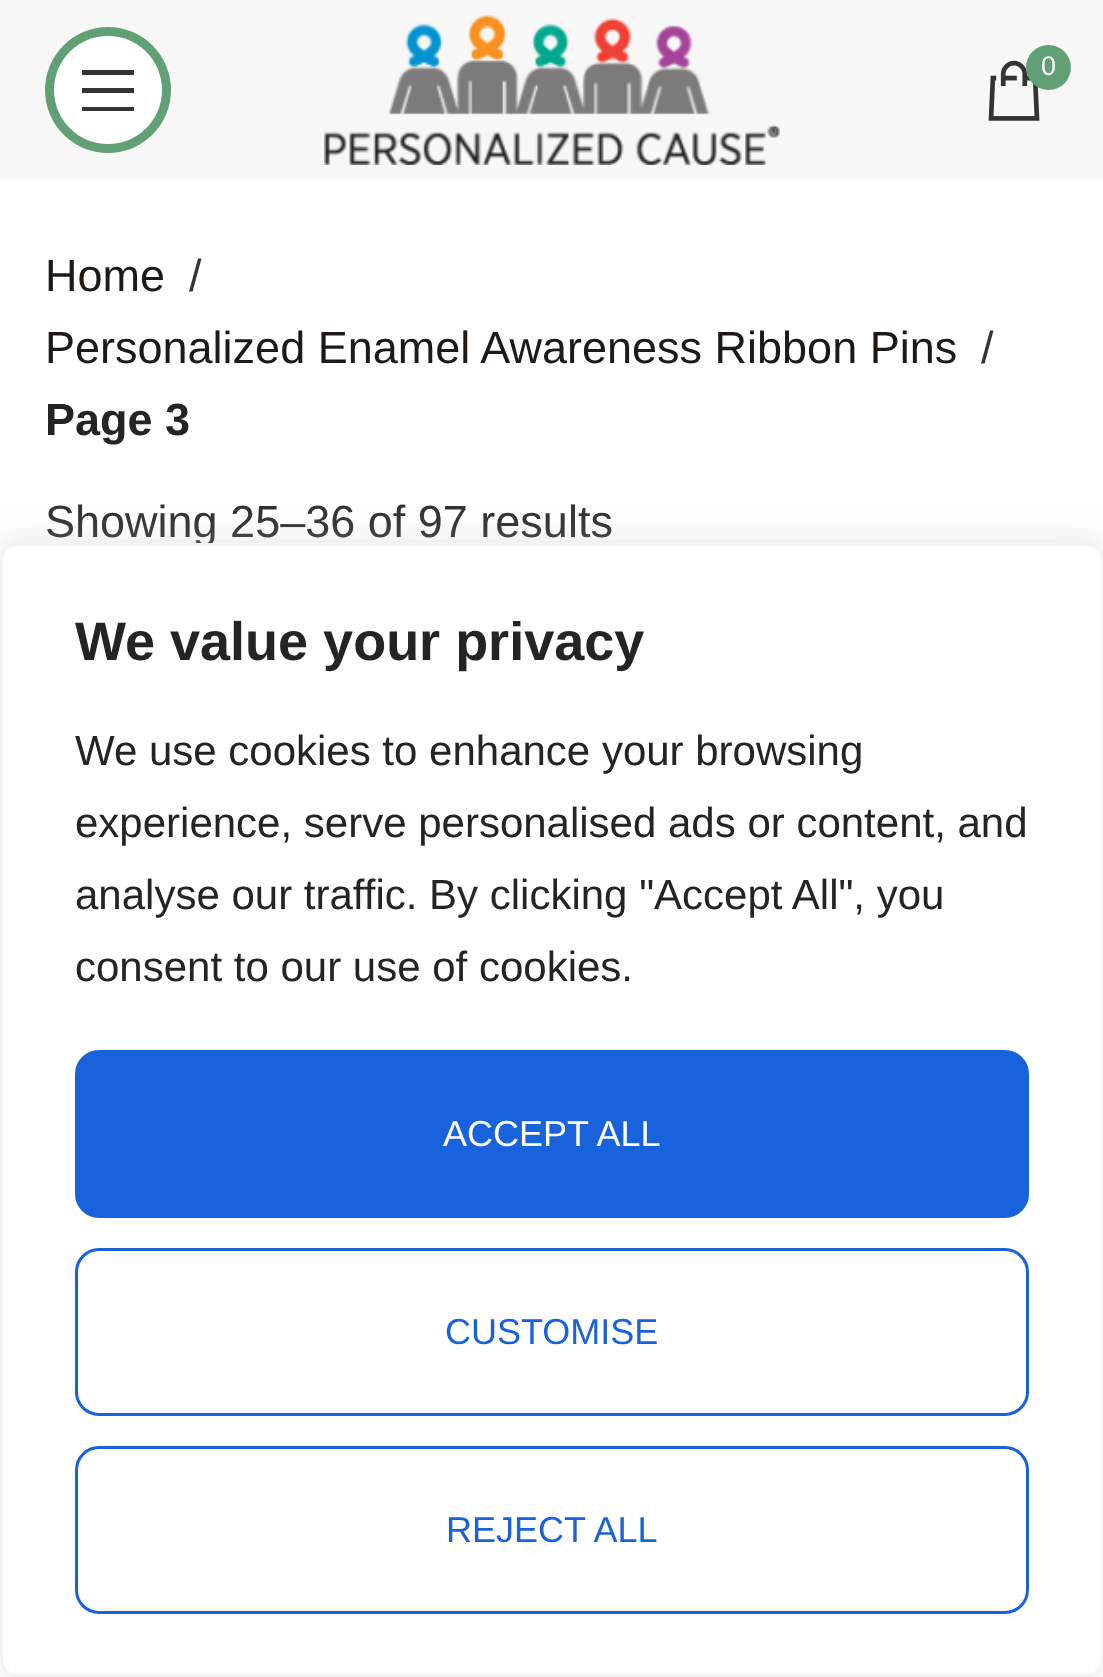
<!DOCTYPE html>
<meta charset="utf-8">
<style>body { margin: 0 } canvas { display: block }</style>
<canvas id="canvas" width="1103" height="1677"></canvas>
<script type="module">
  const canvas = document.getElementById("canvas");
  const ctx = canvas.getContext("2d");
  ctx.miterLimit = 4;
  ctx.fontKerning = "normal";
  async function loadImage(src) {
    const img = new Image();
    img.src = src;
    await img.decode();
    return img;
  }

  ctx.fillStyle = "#ffffff";
  ctx.fillRect(0, 0, 1103, 1677);
  ctx.fillStyle = "#f7f7f7";
  ctx.fillRect(0, 0, 1103, 180);
  ctx.fillStyle = "#619f74";
  ctx.beginPath();
  ctx.arc(108, 90, 63, 0, Math.PI * 2);
  ctx.fill();
  ctx.fillStyle = "#ffffff";
  ctx.beginPath();
  ctx.arc(108, 90, 54, 0, Math.PI * 2);
  ctx.fill();
  ctx.fillStyle = "#333333";
  ctx.beginPath();
  ctx.moveTo(82, 75);
  ctx.lineTo(134, 75);
  ctx.lineTo(134, 70);
  ctx.lineTo(82, 70);
  ctx.closePath();
  ctx.moveTo(82, 93);
  ctx.lineTo(134, 93);
  ctx.lineTo(134, 88);
  ctx.lineTo(82, 88);
  ctx.closePath();
  ctx.moveTo(82, 111);
  ctx.lineTo(134, 111);
  ctx.lineTo(134, 107);
  ctx.lineTo(82, 107);
  ctx.closePath();
  ctx.fill();
  ctx.drawImage(await loadImage("img1.png"), 324, 15, 456, 150);
  ctx.drawImage(await loadImage("img2.png"), 988, 60, 52, 61);
  ctx.fillStyle = "#619f74";
  ctx.beginPath();
  ctx.arc(1048.5, 67.5, 22.5, 0, Math.PI * 2);
  ctx.fill();
  ctx.font = "27px Liberation Sans";
  ctx.fillStyle = "#ffffff";
  ctx.fillText("0", 1041, 75);
  ctx.font = "45px Liberation Sans";
  ctx.fillStyle = "#1f1915";
  ctx.fillText("Home", 45, 291);
  ctx.fillStyle = "#343434";
  ctx.fillText("/", 189, 291);
  ctx.fillStyle = "#1f1915";
  ctx.fillText("Personalized Enamel Awareness Ribbon Pins", 45, 363);
  ctx.fillStyle = "#343434";
  ctx.fillText("/", 981, 363);
  ctx.font = "bold 45px Liberation Sans";
  ctx.fillStyle = "#242424";
  ctx.fillText("Page 3", 45, 435);
  ctx.font = "45px Liberation Sans";
  ctx.fillStyle = "#343434";
  ctx.fillText("Showing 25–36 of 97 results", 45, 537);
  ctx.fillStyle = "rgba(172, 171, 171, 0.3)";
  ctx.filter = "blur(15px)";
  ctx.beginPath();
  ctx.roundRect(0, 540, 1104, 1134, 18);
  ctx.fill();
  ctx.filter = "none";
  ctx.fillStyle = "#ffffff";
  ctx.beginPath();
  ctx.roundRect(1.5, 544.5, 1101, 1131, 16.5);
  ctx.fill();
  ctx.strokeStyle = "#f4f4f4";
  ctx.lineWidth = 3;
  ctx.stroke();
  ctx.font = "bold 54px Liberation Sans";
  ctx.fillStyle = "#242424";
  ctx.fillText("We value your privacy", 75, 660);
  ctx.font = "42px Liberation Sans";
  ctx.fillText("We use cookies to enhance your browsing", 75, 765);
  ctx.fillText("experience, serve personalised ads or content, and", 75, 837);
  ctx.fillText("analyse our traffic. By clicking \"Accept All\", you", 75, 909);
  ctx.fillText("consent to our use of cookies.", 75, 981);
  ctx.fillStyle = "#1863dc";
  ctx.beginPath();
  ctx.roundRect(76.5, 1051.5, 951, 165, 22.5);
  ctx.fill();
  ctx.strokeStyle = "#1863dc";
  ctx.stroke();
  ctx.font = "36px Liberation Sans";
  ctx.fillStyle = "#ffffff";
  ctx.fillText("ACCEPT ALL", 443, 1146);
  ctx.beginPath();
  ctx.roundRect(76.5, 1249.5, 951, 165, 22.5);
  ctx.stroke();
  ctx.fillStyle = "#1863dc";
  ctx.fillText("CUSTOMISE", 445, 1344);
  ctx.beginPath();
  ctx.roundRect(76.5, 1447.5, 951, 165, 22.5);
  ctx.stroke();
  ctx.fillText("REJECT ALL", 446, 1542);
</script>
